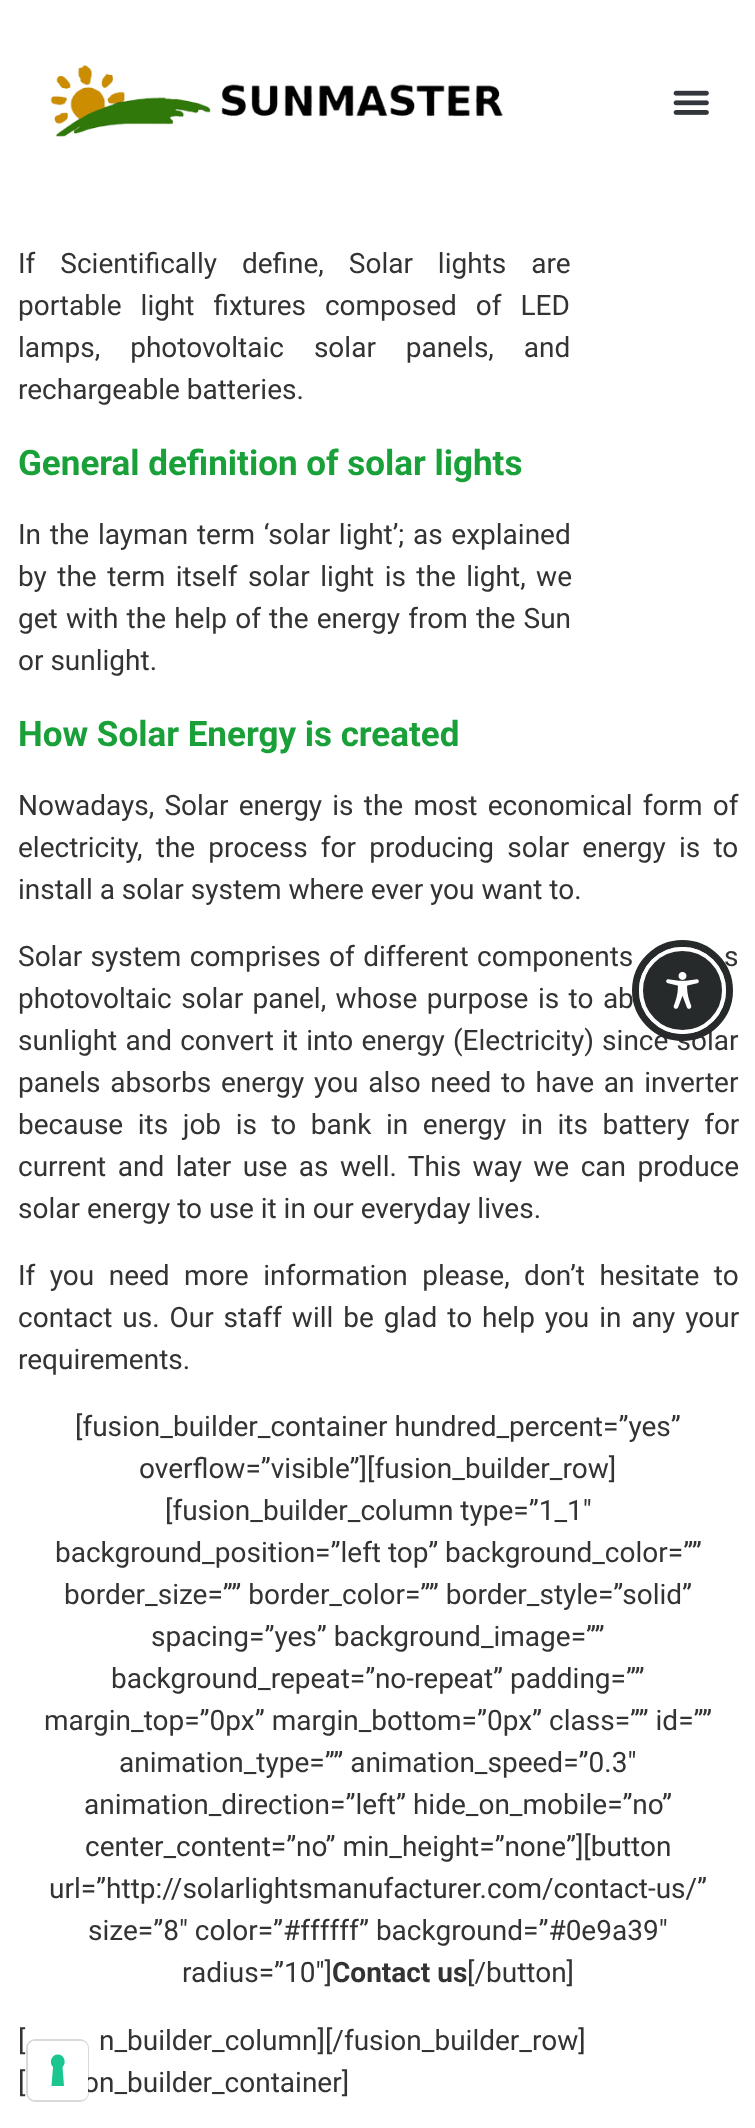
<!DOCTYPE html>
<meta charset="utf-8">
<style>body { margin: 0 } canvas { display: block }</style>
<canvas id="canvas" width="755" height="2128"></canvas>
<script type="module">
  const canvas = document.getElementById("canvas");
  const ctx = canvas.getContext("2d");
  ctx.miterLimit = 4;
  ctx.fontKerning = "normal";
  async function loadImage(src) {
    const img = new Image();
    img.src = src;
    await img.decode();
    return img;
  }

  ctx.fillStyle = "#ffffff";
  ctx.fillRect(0, 0, 755, 2128);
  ctx.drawImage(await loadImage("img1.png"), 50, 64, 453, 73);
  ctx.drawImage(await loadImage("img2.png"), 673, 90, 36, 25);
  ctx.wordSpacing = "18px";
  ctx.font = "28px Roboto";
  ctx.fillStyle = "#333333";
  ctx.fillText("If Scientifically define, Solar lights are", 18, 273);
  ctx.wordSpacing = "12px";
  ctx.fillText("portable light fixtures composed of LED", 18, 315);
  ctx.wordSpacing = "23px";
  ctx.fillText("lamps, photovoltaic solar panels, and", 18, 357);
  ctx.wordSpacing = "0px";
  ctx.fillText("rechargeable batteries.", 18, 399);
  ctx.font = "bold 35px Roboto";
  ctx.fillStyle = "#19a039";
  ctx.fillText("General definition of solar lights", 18, 475);
  ctx.wordSpacing = "1.75px";
  ctx.font = "28px Roboto";
  ctx.fillStyle = "#333333";
  ctx.fillText("In the layman term ‘solar light’; as explained", 18, 544);
  ctx.wordSpacing = "3.5px";
  ctx.fillText("by the term itself solar light is the light, we", 18, 586);
  ctx.wordSpacing = "1.25px";
  ctx.fillText("get with the help of the energy from the Sun", 18, 628);
  ctx.wordSpacing = "0px";
  ctx.fillText("or sunlight.", 18, 670);
  ctx.font = "bold 35px Roboto";
  ctx.fillStyle = "#19a039";
  ctx.fillText("How Solar Energy is created", 18, 746);
  ctx.wordSpacing = "3.25px";
  ctx.font = "28px Roboto";
  ctx.fillStyle = "#333333";
  ctx.fillText("Nowadays, Solar energy is the most economical form of", 18, 815);
  ctx.wordSpacing = "6.25px";
  ctx.fillText("electricity, the process for producing solar energy is to", 18, 857);
  ctx.wordSpacing = "0px";
  ctx.fillText("install a solar system where ever you want to.", 18, 899);
  ctx.wordSpacing = "1.5px";
  ctx.fillText("Solar system comprises of different components", 18, 966);
  ctx.fillText("s", 724, 966);
  ctx.wordSpacing = "2.5px";
  ctx.fillText("photovoltaic solar panel, whose purpose is to ab", 18, 1008);
  ctx.wordSpacing = "1.25px";
  ctx.fillText("sunlight and convert it into energy (Electricity) since solar", 18, 1050);
  ctx.wordSpacing = "2.75px";
  ctx.fillText("panels absorbs energy you also need to have an inverter", 18, 1092);
  ctx.wordSpacing = "7.6px";
  ctx.fillText("because its job is to bank in energy in its battery for", 18, 1134);
  ctx.wordSpacing = "4.5px";
  ctx.fillText("current and later use as well. This way we can produce", 18, 1176);
  ctx.wordSpacing = "0px";
  ctx.fillText("solar energy to use it in our everyday lives.", 18, 1218);
  ctx.wordSpacing = "7.5px";
  ctx.fillText("If you need more information please, don’t hesitate to", 18, 1285);
  ctx.wordSpacing = "3px";
  ctx.fillText("contact us. Our staff will be glad to help you in any your", 18, 1327);
  ctx.wordSpacing = "0px";
  ctx.fillText("requirements.", 18, 1369);
  ctx.fillText("[fusion_builder_container hundred_percent=”yes”", 75, 1436);
  ctx.fillText("overflow=”visible”][fusion_builder_row]", 139, 1478);
  ctx.fillText("[fusion_builder_column type=”1_1″", 165, 1520);
  ctx.fillText("background_position=”left top” background_color=””", 55, 1562);
  ctx.fillText("border_size=”” border_color=”” border_style=”solid”", 64, 1604);
  ctx.fillText("spacing=”yes” background_image=””", 151, 1646);
  ctx.fillText("background_repeat=”no-repeat” padding=””", 111, 1688);
  ctx.fillText("margin_top=”0px” margin_bottom=”0px” class=”” id=””", 44, 1730);
  ctx.fillText("animation_type=”” animation_speed=”0.3″", 119, 1772);
  ctx.fillText("animation_direction=”left” hide_on_mobile=”no”", 84, 1814);
  ctx.fillText("center_content=”no” min_height=”none”][button", 85, 1856);
  ctx.fillText("url=”http://solarlightsmanufacturer.com/contact-us/”", 49, 1898);
  ctx.fillText("size=”8″ color=”#ffffff” background=”#0e9a39″", 88, 1940);
  ctx.fillText("radius=”10″]", 182, 1982);
  ctx.font = "bold 28px Roboto";
  ctx.fillText("Contact us", 332, 1982);
  ctx.font = "28px Roboto";
  ctx.fillText("[/button]", 467, 1982);
  ctx.fillText("[", 18, 2050);
  ctx.fillText("n_builder_column][/fusion_builder_row]", 99, 2050);
  ctx.fillText("[", 18, 2092);
  ctx.fillText("on_builder_container]", 83, 2092);
  ctx.beginPath();
  ctx.arc(682.5, 990.5, 47, 0, Math.PI * 2);
  ctx.strokeStyle = "#262a2b";
  ctx.lineWidth = 7;
  ctx.stroke();
  ctx.fillStyle = "#262a2b";
  ctx.beginPath();
  ctx.arc(682.5, 990.5, 41.5, 0, Math.PI * 2);
  ctx.fill();
  ctx.strokeStyle = "#ffffff";
  ctx.lineWidth = 4;
  ctx.stroke();
  ctx.drawImage(await loadImage("img3.png"), 666, 972, 33, 37);
  ctx.beginPath();
  ctx.roundRect(27, 2040, 61, 61, 8);
  ctx.strokeStyle = "rgba(0, 0, 0, 0.15)";
  ctx.lineWidth = 2;
  ctx.stroke();
  ctx.fillStyle = "#ffffff";
  ctx.beginPath();
  ctx.roundRect(28, 2041, 60, 59, 7);
  ctx.fill();
  ctx.fillStyle = "#1cc691";
  ctx.beginPath();
  ctx.moveTo(58, 2054.5);
  ctx.bezierCurveTo(64, 2054.5, 67, 2062.5, 62.5, 2067);
  ctx.lineTo(64, 2086);
  ctx.lineTo(51.5, 2086);
  ctx.lineTo(53, 2067);
  ctx.bezierCurveTo(48.5, 2062.5, 51.5, 2054.5, 58, 2054.5);
  ctx.closePath();
  ctx.fill("evenodd");
</script>
